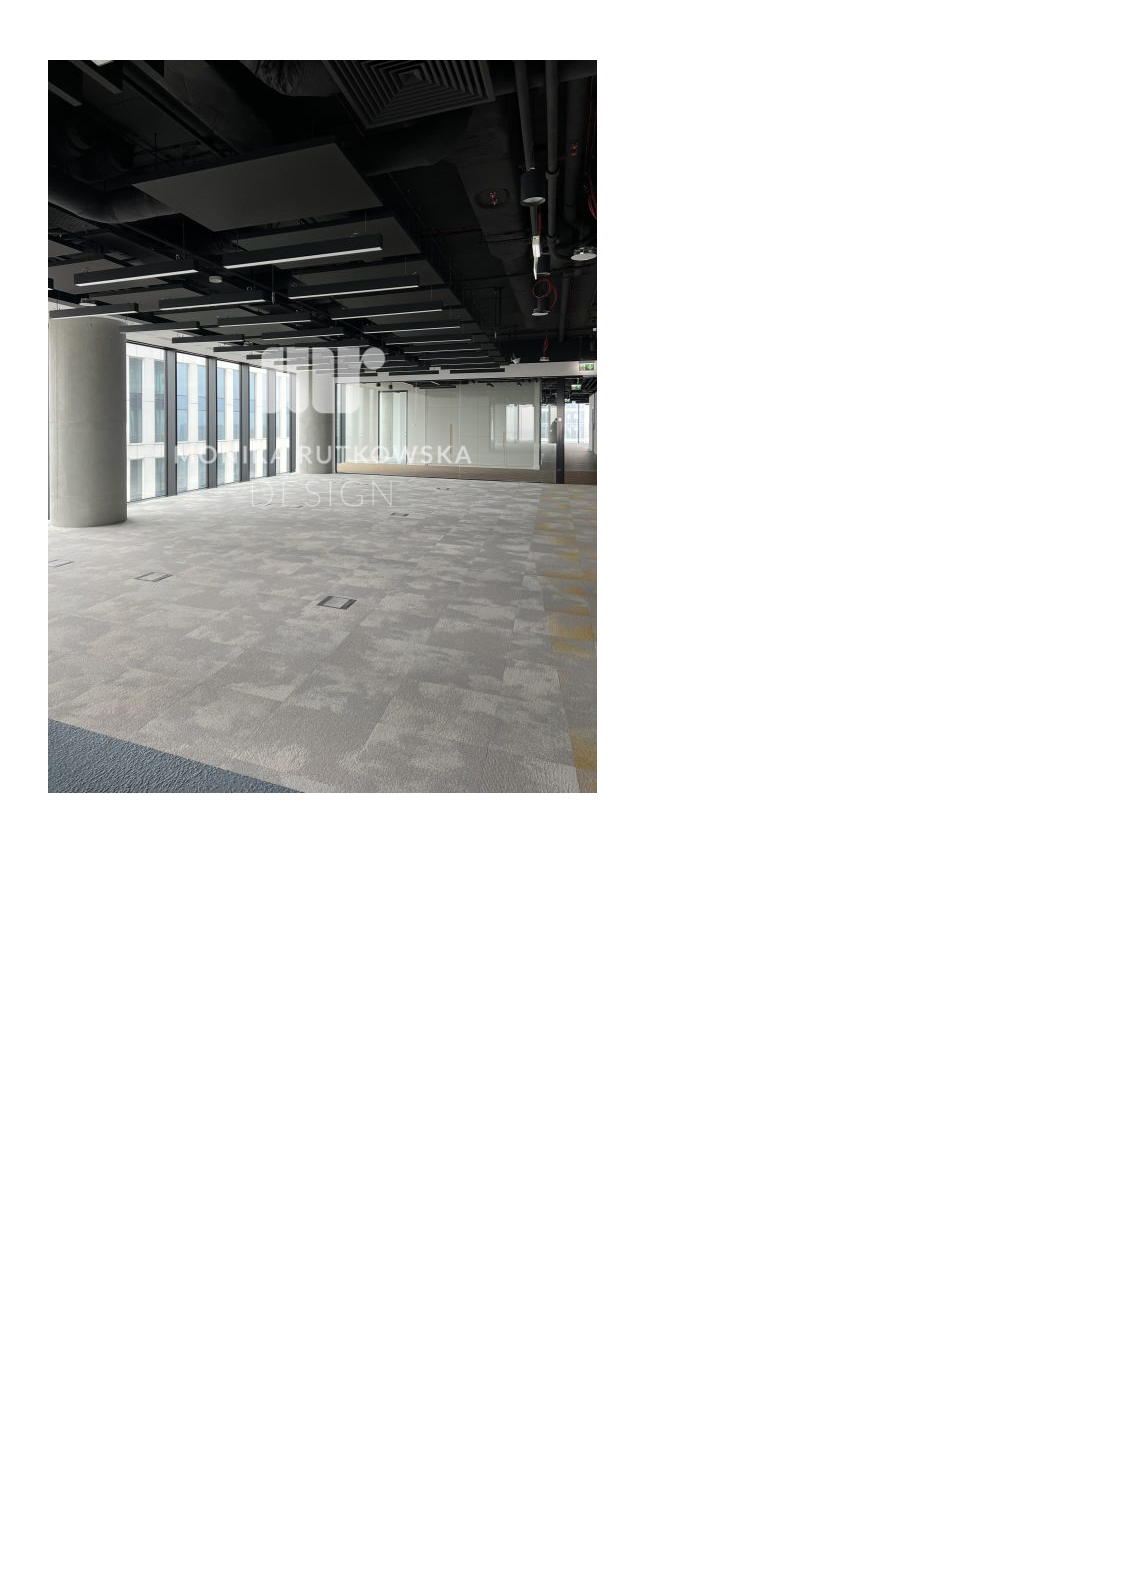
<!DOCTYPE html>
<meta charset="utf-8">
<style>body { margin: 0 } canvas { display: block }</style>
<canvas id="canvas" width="1123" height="1569"></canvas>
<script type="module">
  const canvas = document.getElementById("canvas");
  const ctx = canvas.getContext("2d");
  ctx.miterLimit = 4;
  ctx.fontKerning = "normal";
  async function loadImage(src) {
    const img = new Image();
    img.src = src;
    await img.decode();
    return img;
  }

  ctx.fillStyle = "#ffffff";
  ctx.fillRect(0, 0, 1123, 1569);
  ctx.drawImage(await loadImage("img1.png"), 48, 60, 549, 733);
</script>
